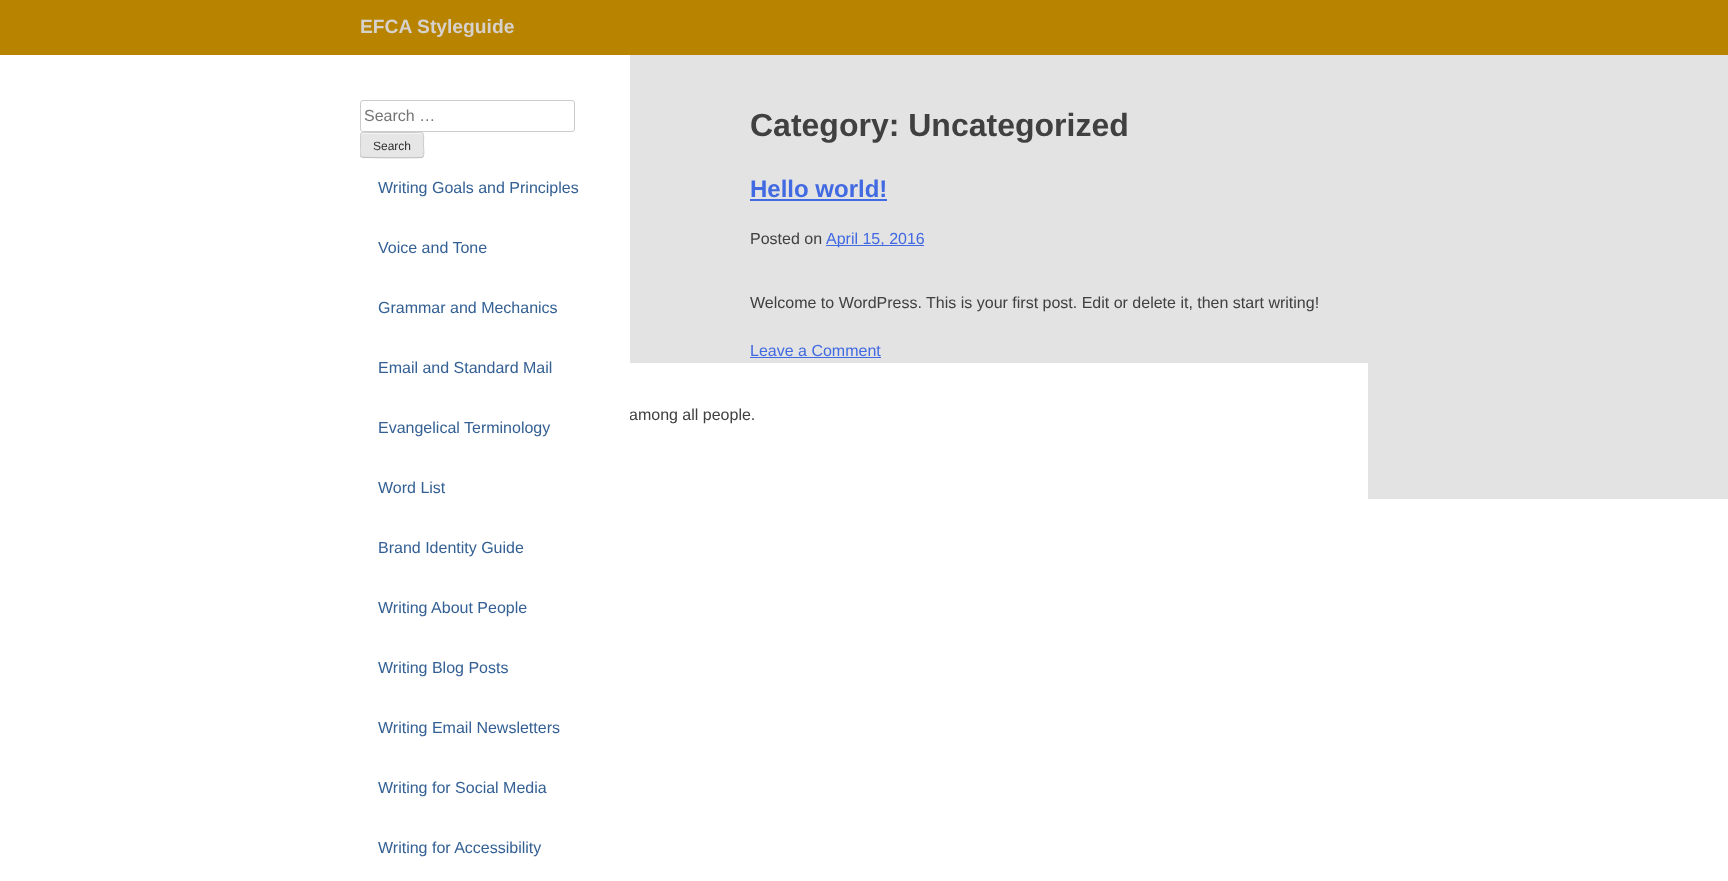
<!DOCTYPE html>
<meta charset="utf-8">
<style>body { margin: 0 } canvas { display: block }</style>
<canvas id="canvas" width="1728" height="881"></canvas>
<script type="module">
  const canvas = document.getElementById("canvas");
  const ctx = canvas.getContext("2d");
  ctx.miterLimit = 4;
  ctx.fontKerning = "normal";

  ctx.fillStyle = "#ffffff";
  ctx.fillRect(0, 0, 1728, 881);
  ctx.fillStyle = "#b88400";
  ctx.fillRect(0, 0, 1728, 55);
  ctx.font = "bold 19.25px Liberation Sans";
  ctx.fillStyle = "#d7d1cb";
  ctx.fillText("EFCA Styleguide", 360, 33);
  ctx.font = "16px Liberation Sans";
  ctx.fillStyle = "#404040";
  ctx.fillText("among all people.", 629, 420);
  ctx.fillStyle = "#ffffff";
  ctx.fillRect(629, 412, 1, 8);
  ctx.beginPath();
  ctx.roundRect(360.5, 100.5, 214, 31, 2.5);
  ctx.strokeStyle = "#cccccc";
  ctx.stroke();
  ctx.fillStyle = "#757575";
  ctx.fillText("Search …", 364, 121);
  ctx.fillStyle = "#e6e6e6";
  ctx.beginPath();
  ctx.roundRect(360, 132, 64, 26, 3);
  ctx.fill();
  ctx.fillStyle = "#f3f3f3";
  ctx.beginPath();
  ctx.moveTo(363, 134);
  ctx.lineTo(421, 134);
  ctx.bezierCurveTo(422, 134, 423, 135, 423, 136);
  ctx.bezierCurveTo(423, 130, 415, 133, 411, 133);
  ctx.lineTo(373, 133);
  ctx.bezierCurveTo(369, 133, 361, 130, 361, 136);
  ctx.bezierCurveTo(361, 135, 362, 134, 363, 134);
  ctx.closePath();
  ctx.fill();
  ctx.beginPath();
  ctx.moveTo(423, 157);
  ctx.lineTo(421, 157.5);
  ctx.bezierCurveTo(416, 158, 362.5, 158, 361.5, 157);
  ctx.lineTo(361, 157);
  ctx.strokeStyle = "#bbbbbb";
  ctx.stroke();
  ctx.save();
  ctx.beginPath();
  ctx.rect(360, 100, 270, 781);
  ctx.clip();
  ctx.beginPath();
  ctx.moveTo(361, 157);
  ctx.bezierCurveTo(359.5, 155, 360.5, 147.5, 360.5, 145);
  ctx.bezierCurveTo(360.5, 130.5, 358, 132.5, 372.5, 132.5);
  ctx.lineTo(411.5, 132.5);
  ctx.bezierCurveTo(426, 132.5, 423.5, 130.5, 423.5, 145);
  ctx.bezierCurveTo(423.5, 147.5, 424.5, 155, 423, 157);
  ctx.strokeStyle = "#cccccc";
  ctx.stroke();
  ctx.restore();
  ctx.font = "12px Liberation Sans";
  ctx.fillStyle = "#2e2e2e";
  ctx.fillText("Search", 373, 150);
  ctx.font = "16px Liberation Sans";
  ctx.fillStyle = "#346094";
  ctx.fillText("Writing Goals and Principles", 378, 193);
  ctx.fillText("Voice and Tone", 378, 253);
  ctx.fillText("Grammar and Mechanics", 378, 313);
  ctx.fillText("Email and Standard Mail", 378, 373);
  ctx.fillText("Evangelical Terminology", 378, 433);
  ctx.fillText("Word List", 378, 493);
  ctx.fillText("Brand Identity Guide", 378, 553);
  ctx.fillText("Writing About People", 378, 613);
  ctx.fillText("Writing Blog Posts", 378, 673);
  ctx.fillText("Writing Email Newsletters", 378, 733);
  ctx.fillText("Writing for Social Media", 378, 793);
  ctx.fillText("Writing for Accessibility", 378, 853);
  ctx.fillStyle = "#e3e3e3";
  ctx.fillRect(630, 55, 738, 308);
  ctx.font = "bold 32px Liberation Sans";
  ctx.fillStyle = "#404040";
  ctx.fillText("Category: Uncategorized", 750, 136);
  ctx.font = "bold 24px Liberation Sans";
  ctx.fillStyle = "#4169e1";
  ctx.fillText("Hello world!", 750, 197);
  ctx.fillRect(750, 199, 137, 2);
  ctx.font = "16px Liberation Sans";
  ctx.fillStyle = "#404040";
  ctx.fillText("Posted on", 750, 244);
  ctx.fillStyle = "#4169e1";
  ctx.fillRect(826, 245, 98, 1);
  ctx.fillText("April 15, 2016", 826, 244);
  ctx.fillStyle = "#e3e3e3";
  ctx.fillRect(1368, 55, 360, 444);
  ctx.fillStyle = "#404040";
  ctx.fillText("Welcome to WordPress. This is your first post. Edit or delete it, then start writing!", 750, 308);
  ctx.fillStyle = "#4169e1";
  ctx.fillText("Leave a Comment", 750, 356);
  ctx.fillRect(750, 357, 131, 1);
</script>
